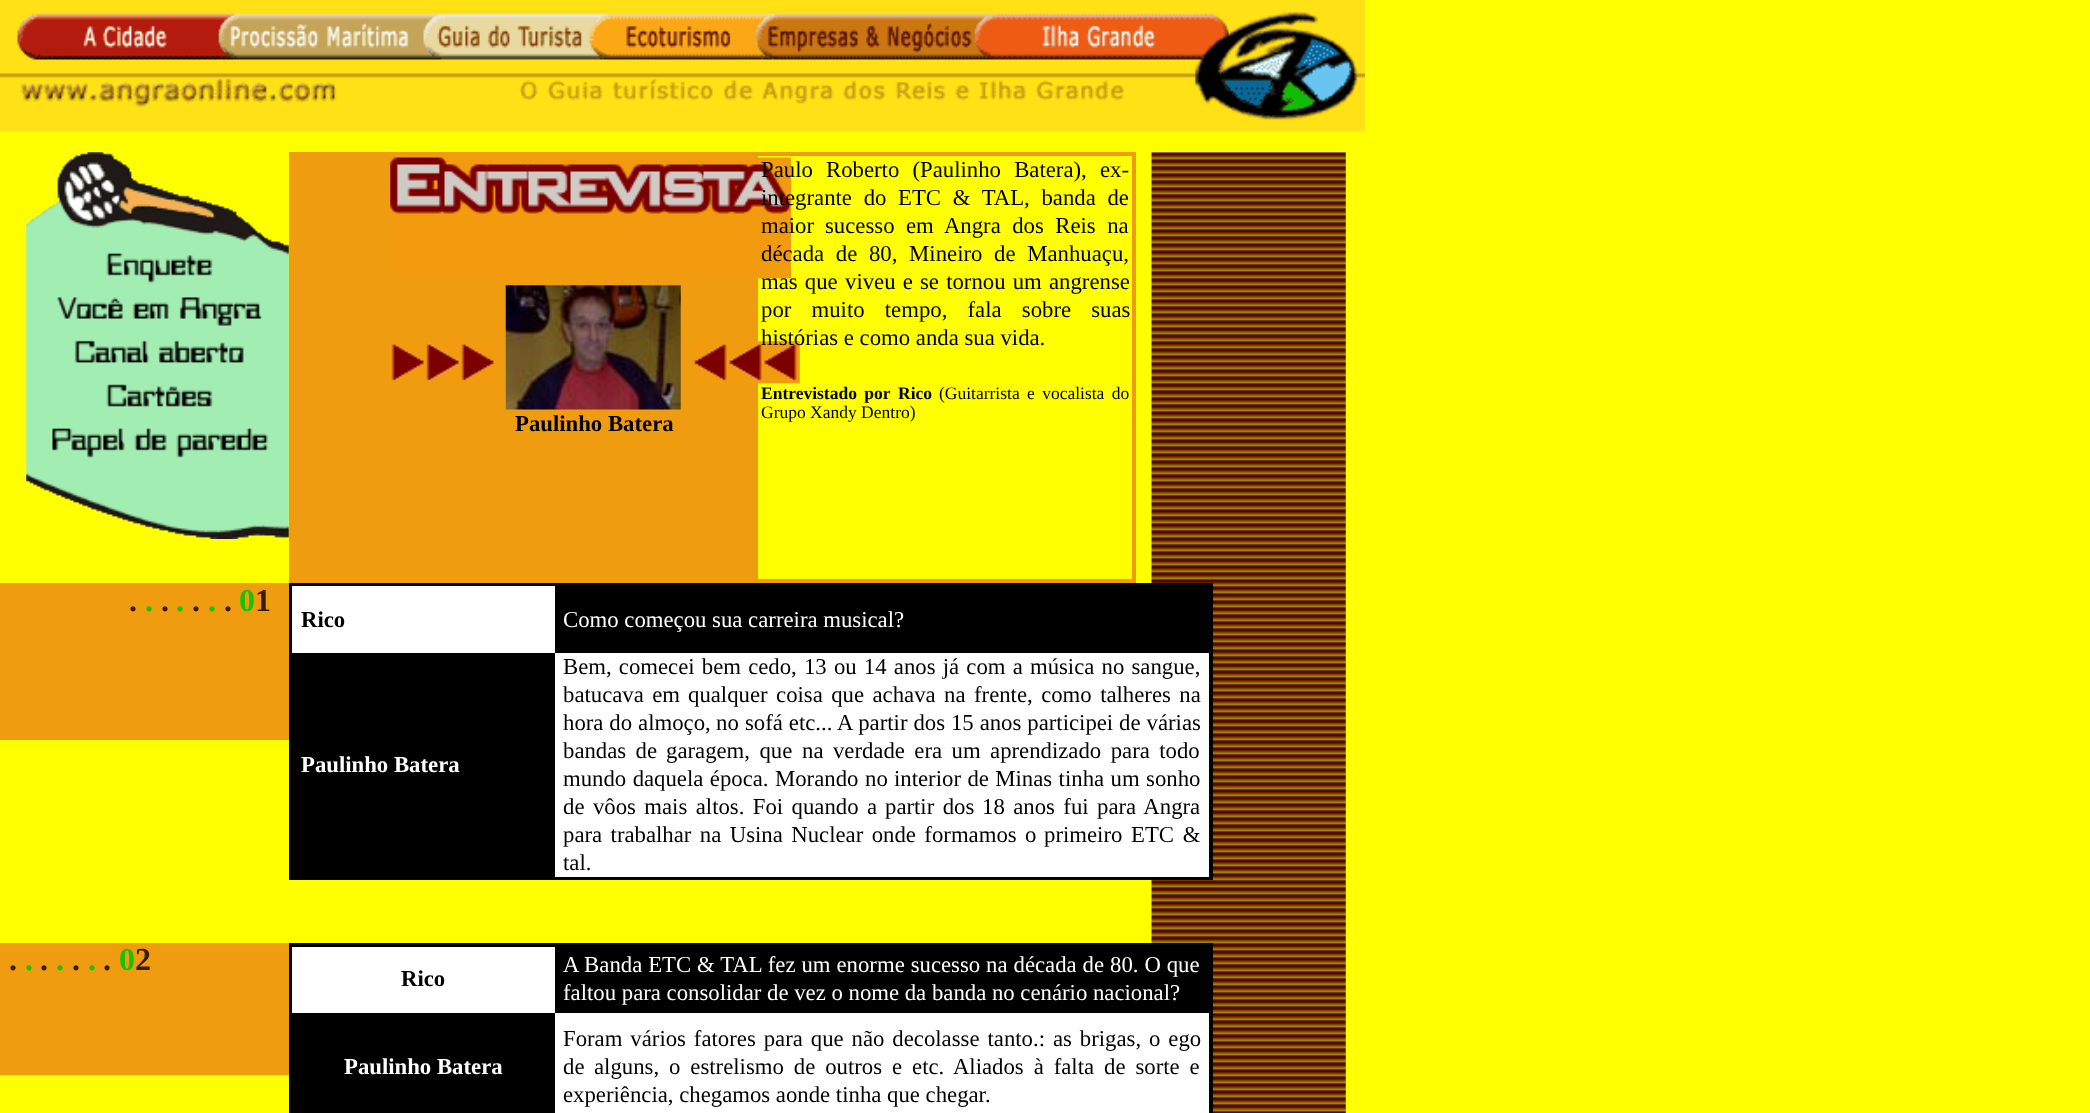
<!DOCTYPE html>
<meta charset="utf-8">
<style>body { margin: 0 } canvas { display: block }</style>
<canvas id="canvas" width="2090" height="1113"></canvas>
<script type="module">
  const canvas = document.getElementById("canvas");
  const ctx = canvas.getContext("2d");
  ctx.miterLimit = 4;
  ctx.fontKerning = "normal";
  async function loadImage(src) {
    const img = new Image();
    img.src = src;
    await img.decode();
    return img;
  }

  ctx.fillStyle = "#ffff00";
  ctx.fillRect(0, 0, 2090, 1113);
  ctx.drawImage(await loadImage("img1.png"), 0, 0, 1365, 132);
  ctx.drawImage(await loadImage("img2.png"), 26, 152, 263, 387);
  ctx.fillStyle = "#f09c10";
  ctx.fillRect(289, 152, 465, 431);
  ctx.strokeStyle = "#f09c10";
  ctx.lineWidth = 4;
  ctx.strokeRect(756, 154, 378, 427);
  ctx.drawImage(await loadImage("img3.png"), 390, 157, 401, 122);
  ctx.drawImage(await loadImage("img4.png"), 391, 342, 103, 40);
  ctx.drawImage(await loadImage("img5.png"), 694, 341, 106, 43);
  ctx.drawImage(await loadImage("img6.png"), 505, 285, 176, 125);
  ctx.font = "bold 22.75px Liberation Serif";
  ctx.fillStyle = "#000000";
  ctx.fillText("Paulinho Batera", 515, 431);
  ctx.font = "22.75px Liberation Serif";
  ctx.fillText("Paulo", 761, 177);
  ctx.wordSpacing = "7.5px";
  ctx.fillText("Roberto (Paulinho Batera), ex-", 826, 177);
  ctx.wordSpacing = "6px";
  ctx.fillText("integrante do ETC & TAL, banda de", 761, 205);
  ctx.wordSpacing = "0px";
  ctx.fillText("maior", 761, 233);
  ctx.wordSpacing = "5.75px";
  ctx.fillText("sucesso em Angra dos Reis na", 825, 233);
  ctx.wordSpacing = "6px";
  ctx.fillText("década de 80, Mineiro de Manhuaçu,", 761, 261);
  ctx.wordSpacing = "1.5px";
  ctx.fillText("mas que", 761, 289);
  ctx.fillText("viveu e se tornou um angrense", 845, 289);
  ctx.wordSpacing = "14.5px";
  ctx.fillText("por muito tempo, fala sobre suas", 761, 317);
  ctx.wordSpacing = "0px";
  ctx.fillText("histórias e como anda sua vida.", 761, 345);
  ctx.wordSpacing = "3px";
  ctx.font = "bold 17.5px Liberation Serif";
  ctx.fillText("Entrevistado por", 761, 399);
  ctx.wordSpacing = "0px";
  ctx.fillText("Rico", 898, 399);
  ctx.wordSpacing = "3px";
  ctx.font = "17.5px Liberation Serif";
  ctx.fillText("(Guitarrista e vocalista do", 939, 399);
  ctx.wordSpacing = "0px";
  ctx.fillText("Grupo Xandy Dentro)", 761, 418);
  ctx.drawImage(await loadImage("img7.png"), 1151, 152, 195, 961);
  ctx.fillStyle = "#f09c10";
  ctx.fillRect(0, 583, 289, 157);
  ctx.font = "bold 32px Liberation Serif";
  ctx.fillStyle = "#371c00";
  ctx.fillText(".", 129, 611);
  ctx.fillStyle = "#10c400";
  ctx.fillText(".", 145, 611);
  ctx.fillStyle = "#371c00";
  ctx.fillText(".", 161, 611);
  ctx.fillStyle = "#10c400";
  ctx.fillText(".", 176, 611);
  ctx.fillStyle = "#371c00";
  ctx.fillText(".", 192, 611);
  ctx.fillStyle = "#10c400";
  ctx.fillText(".", 208, 611);
  ctx.fillStyle = "#371c00";
  ctx.fillText(".", 224, 611);
  ctx.fillStyle = "#10c400";
  ctx.fillText("0", 239, 611);
  ctx.fillStyle = "#371c00";
  ctx.fillText("1", 255, 611);
  ctx.strokeStyle = "#000000";
  ctx.strokeRect(291, 585, 920, 293);
  ctx.fillStyle = "#ffffff";
  ctx.fillRect(292, 586, 263, 67);
  ctx.font = "bold 22.75px Liberation Serif";
  ctx.fillStyle = "#000000";
  ctx.fillText("Rico", 301, 627);
  ctx.fillRect(555, 587, 654, 66);
  ctx.font = "22.75px Liberation Serif";
  ctx.fillStyle = "#ffffff";
  ctx.fillText("Como começou sua carreira musical?", 563, 627);
  ctx.fillStyle = "#000000";
  ctx.fillRect(293, 653, 262, 223);
  ctx.font = "bold 22.75px Liberation Serif";
  ctx.fillStyle = "#ffffff";
  ctx.fillText("Paulinho Batera", 301, 772);
  ctx.fillRect(555, 653, 654, 224);
  ctx.wordSpacing = "1.5px";
  ctx.font = "22.75px Liberation Serif";
  ctx.fillStyle = "#000000";
  ctx.fillText("Bem, comecei bem cedo, 13 ou 14 anos já com a música no sangue,", 563, 674);
  ctx.wordSpacing = "2.75px";
  ctx.fillText("batucava em", 563, 702);
  ctx.fillText("qualquer coisa que achava na frente, como talheres na", 688, 702);
  ctx.wordSpacing = "0.25px";
  ctx.fillText("hora do almoço,", 563, 730);
  ctx.wordSpacing = "0px";
  ctx.fillText("no", 716, 730);
  ctx.wordSpacing = "0.25px";
  ctx.fillText("sofá etc... A partir dos 15 anos participei de várias", 745, 730);
  ctx.wordSpacing = "3.75px";
  ctx.fillText("bandas de", 563, 758);
  ctx.fillText("garagem, que", 666, 758);
  ctx.fillText("na verdade era um aprendizado para todo", 802, 758);
  ctx.wordSpacing = "0.75px";
  ctx.fillText("mundo daquela época. Morando", 563, 786);
  ctx.wordSpacing = "0px";
  ctx.fillText("no", 865, 786);
  ctx.wordSpacing = "0.75px";
  ctx.fillText("interior de Minas tinha um sonho", 894, 786);
  ctx.wordSpacing = "2.75px";
  ctx.fillText("de vôos mais altos. Foi quando a", 563, 814);
  ctx.fillText("partir dos", 885, 814);
  ctx.fillText("18 anos fui para Angra", 982, 814);
  ctx.fillText("para trabalhar na Usina Nuclear onde formamos o", 563, 842);
  ctx.wordSpacing = "3px";
  ctx.fillText("primeiro ETC &", 1044, 842);
  ctx.wordSpacing = "0px";
  ctx.fillText("tal.", 563, 870);
  ctx.fillStyle = "#f09c10";
  ctx.fillRect(0, 943, 289, 132);
  ctx.font = "bold 32px Liberation Serif";
  ctx.fillStyle = "#371c00";
  ctx.fillText(".", 9, 970);
  ctx.fillStyle = "#10c400";
  ctx.fillText(".", 25, 970);
  ctx.fillStyle = "#371c00";
  ctx.fillText(".", 40, 970);
  ctx.fillStyle = "#10c400";
  ctx.fillText(".", 56, 970);
  ctx.fillStyle = "#371c00";
  ctx.fillText(".", 72, 970);
  ctx.fillStyle = "#10c400";
  ctx.fillText(".", 88, 970);
  ctx.fillStyle = "#371c00";
  ctx.fillText(".", 103, 970);
  ctx.fillStyle = "#10c400";
  ctx.fillText("0", 119, 970);
  ctx.fillStyle = "#371c00";
  ctx.fillText("2", 135, 970);
  ctx.strokeRect(291, 945, 920, 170);
  ctx.fillStyle = "#ffffff";
  ctx.fillRect(292, 947, 263, 66);
  ctx.font = "bold 22.75px Liberation Serif";
  ctx.fillStyle = "#000000";
  ctx.fillText("Rico", 401, 986);
  ctx.fillRect(555, 947, 654, 66);
  ctx.wordSpacing = "0.25px";
  ctx.font = "22.75px Liberation Serif";
  ctx.fillStyle = "#ffffff";
  ctx.fillText("A Banda ETC & TAL fez um enorme sucesso na década de 80. O que", 563, 972);
  ctx.wordSpacing = "0px";
  ctx.fillText("faltou para consolidar de vez o nome da banda no cenário nacional?", 563, 1000);
  ctx.fillStyle = "#000000";
  ctx.fillRect(293, 1013, 262, 100);
  ctx.font = "bold 22.75px Liberation Serif";
  ctx.fillStyle = "#ffffff";
  ctx.fillText("Paulinho Batera", 344, 1074);
  ctx.fillRect(555, 1013, 654, 100);
  ctx.wordSpacing = "2.25px";
  ctx.font = "22.75px Liberation Serif";
  ctx.fillStyle = "#000000";
  ctx.fillText("Foram vários fatores para que não decolasse tanto.: as brigas, o ego", 563, 1046);
  ctx.wordSpacing = "0px";
  ctx.fillText("de", 563, 1074);
  ctx.wordSpacing = "4.25px";
  ctx.fillText("alguns, o estrelismo de outros e etc. Aliados à falta de sorte e", 594, 1074);
  ctx.wordSpacing = "0px";
  ctx.fillText("experiência, chegamos aonde tinha que chegar.", 563, 1102);
</script>
